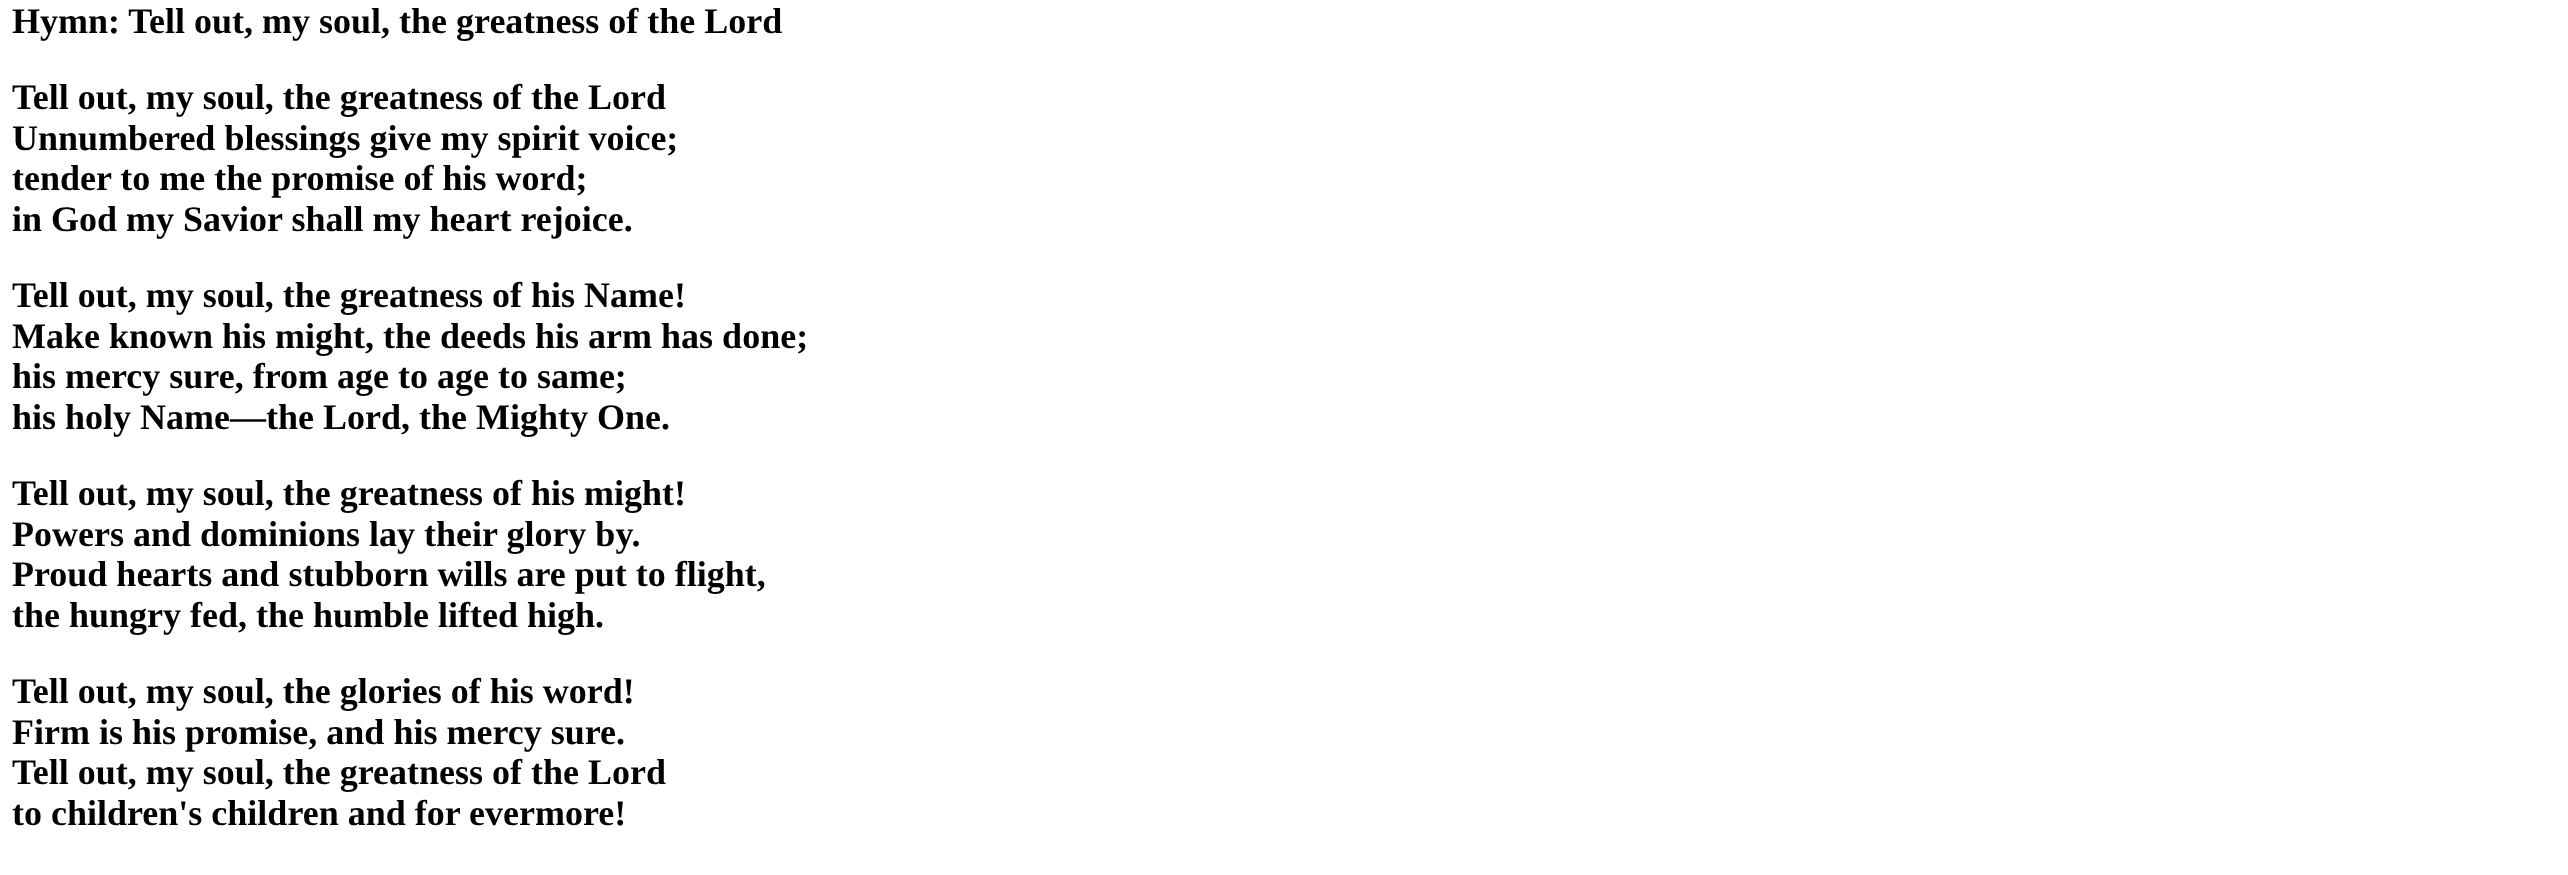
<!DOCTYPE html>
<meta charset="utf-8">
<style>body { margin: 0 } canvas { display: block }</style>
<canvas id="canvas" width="2568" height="875"></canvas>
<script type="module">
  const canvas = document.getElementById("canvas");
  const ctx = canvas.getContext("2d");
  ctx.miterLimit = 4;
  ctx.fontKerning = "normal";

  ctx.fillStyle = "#ffffff";
  ctx.fillRect(0, 0, 2568, 875);
  ctx.font = "bold 36px Liberation Serif";
  ctx.fillStyle = "#000000";
  ctx.fillText("Hymn: Tell out, my soul, the greatness of the Lord", 12, 33);
  ctx.fillText("Tell out, my soul, the greatness of the Lord", 12, 109);
  ctx.fillText("Unnumbered blessings give my spirit voice;", 12, 150);
  ctx.fillText("tender to me the promise of his word;", 12, 190);
  ctx.fillText("in God my Savior shall my heart rejoice.", 12, 231);
  ctx.fillText("Tell out, my soul, the greatness of his Name!", 12, 307);
  ctx.fillText("Make known his might, the deeds his arm has done;", 12, 348);
  ctx.fillText("his mercy sure, from age to age to same;", 12, 388);
  ctx.fillText("his holy Name—the Lord, the Mighty One.", 12, 429);
  ctx.fillText("Tell out, my soul, the greatness of his might!", 12, 505);
  ctx.fillText("Powers and dominions lay their glory by.", 12, 546);
  ctx.fillText("Proud hearts and stubborn wills are put to flight,", 12, 586);
  ctx.fillText("the hungry fed, the humble lifted high.", 12, 627);
  ctx.fillText("Tell out, my soul, the glories of his word!", 12, 703);
  ctx.fillText("Firm is his promise, and his mercy sure.", 12, 744);
  ctx.fillText("Tell out, my soul, the greatness of the Lord", 12, 784);
  ctx.fillText("to children's children and for evermore!", 12, 825);
</script>
